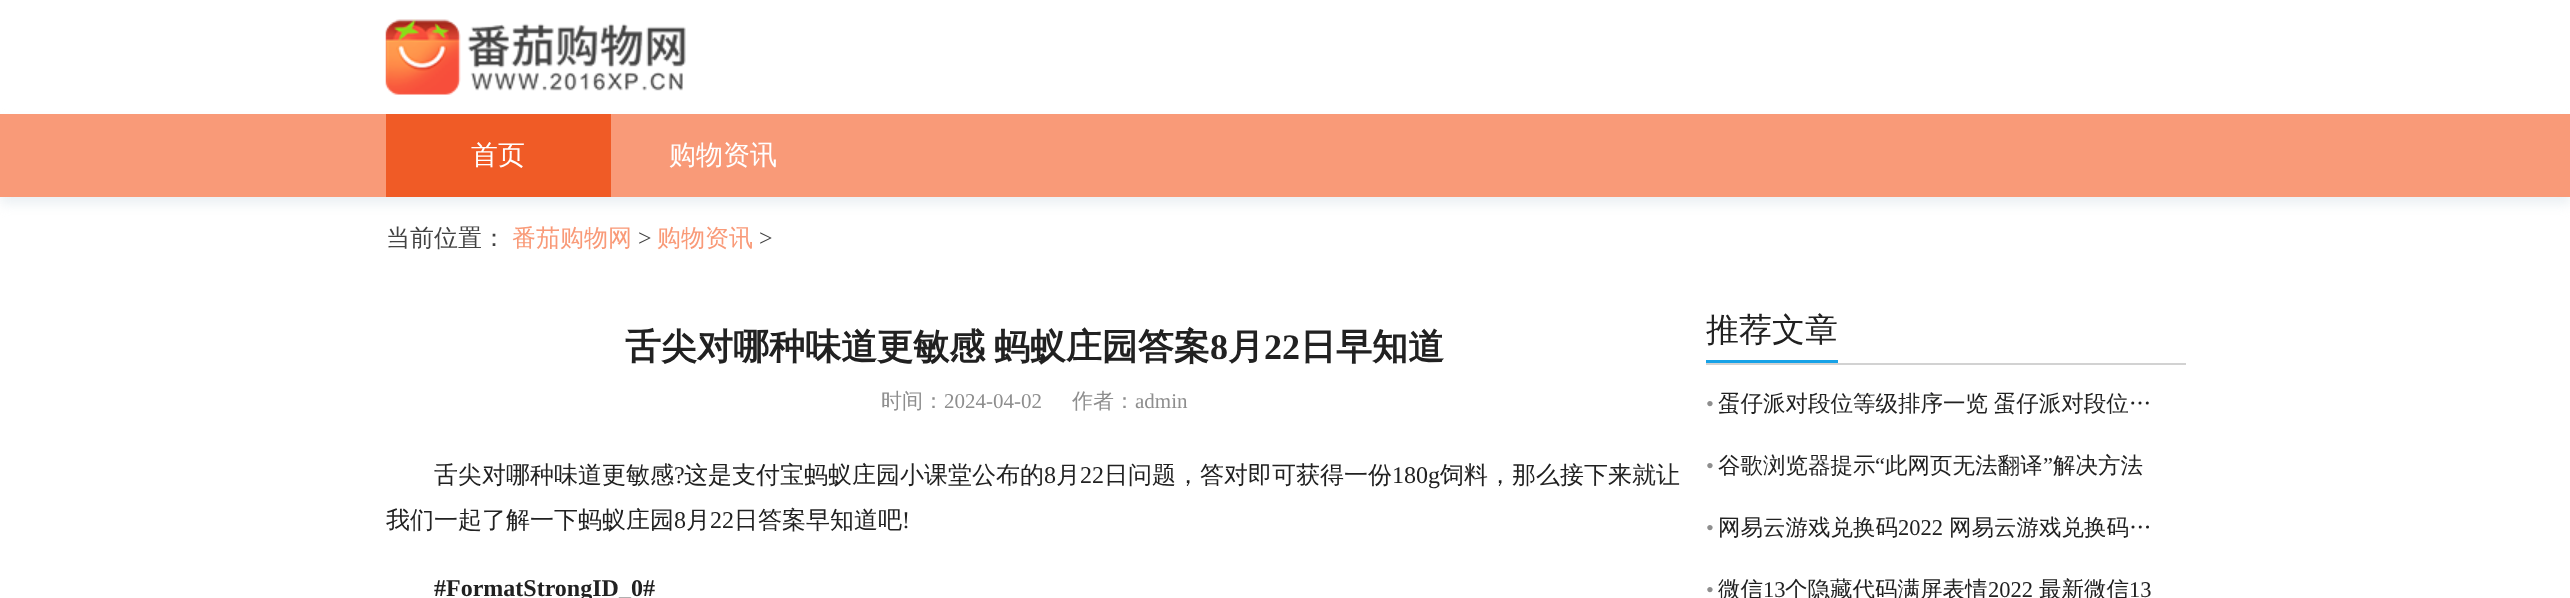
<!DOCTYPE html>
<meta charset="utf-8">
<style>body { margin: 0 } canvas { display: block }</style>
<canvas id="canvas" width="2570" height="598"></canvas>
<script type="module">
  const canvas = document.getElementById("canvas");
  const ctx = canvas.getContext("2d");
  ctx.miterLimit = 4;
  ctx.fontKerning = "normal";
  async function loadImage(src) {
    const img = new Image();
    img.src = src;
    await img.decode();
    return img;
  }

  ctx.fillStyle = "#ffffff";
  ctx.fillRect(0, 0, 2570, 598);
  ctx.drawImage(await loadImage("img1.png"), 385, 19, 301, 76);
  ctx.fillStyle = "#ebf0f3";
  ctx.filter = "blur(6px)";
  ctx.beginPath();
  ctx.rect(0, 122, 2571, 82);
  ctx.fill();
  ctx.filter = "none";
  ctx.fillStyle = "#f99a78";
  ctx.fillRect(0, 114, 2570, 83);
  ctx.fillStyle = "#f05b26";
  ctx.fillRect(386, 114, 225, 83);
  ctx.font = "500 27px WenQuanYi Zen Hei";
  ctx.fillStyle = "#ffffff";
  ctx.fillText("首页", 471, 164);
  ctx.fillText("购物资讯", 669, 164);
  ctx.font = "500 24px WenQuanYi Zen Hei";
  ctx.fillStyle = "#434343";
  ctx.fillText("当前位置：", 386, 246);
  ctx.fillStyle = "#f99a78";
  ctx.fillText("番茄购物网", 512, 246);
  ctx.font = "24px Liberation Serif";
  ctx.fillStyle = "#434343";
  ctx.fillText(">", 638, 246);
  ctx.font = "500 24px WenQuanYi Zen Hei";
  ctx.fillStyle = "#f99a78";
  ctx.fillText("购物资讯", 657, 246);
  ctx.font = "24px Liberation Serif";
  ctx.fillStyle = "#434343";
  ctx.fillText(">", 759, 246);
  ctx.wordSpacing = "-2px";
  ctx.font = "bold 36px WenQuanYi Zen Hei";
  ctx.fillStyle = "#212121";
  ctx.fillText("舌尖对哪种味道更敏感 蚂蚁庄园答案", 625, 359);
  ctx.wordSpacing = "0px";
  ctx.font = "bold 36px Liberation Serif";
  ctx.fillText("8", 1210, 359);
  ctx.font = "bold 36px WenQuanYi Zen Hei";
  ctx.fillText("月", 1228, 359);
  ctx.font = "bold 36px Liberation Serif";
  ctx.fillText("22", 1264, 359);
  ctx.font = "bold 36px WenQuanYi Zen Hei";
  ctx.fillText("日早知道", 1300, 359);
  ctx.font = "500 21px WenQuanYi Zen Hei";
  ctx.fillStyle = "#8e8e8e";
  ctx.fillText("时间：", 881, 408);
  ctx.font = "21px Liberation Serif";
  ctx.fillText("2024-04-02", 944, 408);
  ctx.font = "500 21px WenQuanYi Zen Hei";
  ctx.fillText("作者：", 1072, 408);
  ctx.font = "21px Liberation Serif";
  ctx.fillText("admin", 1135, 408);
  ctx.font = "500 24px WenQuanYi Zen Hei";
  ctx.fillStyle = "#212121";
  ctx.fillText("舌尖对哪种味道更敏感", 434, 483);
  ctx.font = "24px Liberation Serif";
  ctx.fillText("?", 674, 483);
  ctx.font = "500 24px WenQuanYi Zen Hei";
  ctx.fillText("这是支付宝蚂蚁庄园小课堂公布的", 684, 483);
  ctx.font = "24px Liberation Serif";
  ctx.fillText("8", 1044, 483);
  ctx.font = "500 24px WenQuanYi Zen Hei";
  ctx.fillText("月", 1056, 483);
  ctx.font = "24px Liberation Serif";
  ctx.fillText("22", 1080, 483);
  ctx.font = "500 24px WenQuanYi Zen Hei";
  ctx.fillText("日问题，答对即可获得一份", 1104, 483);
  ctx.font = "24px Liberation Serif";
  ctx.fillText("180g", 1392, 483);
  ctx.font = "500 24px WenQuanYi Zen Hei";
  ctx.fillText("饲料，那么接下来就让", 1440, 483);
  ctx.fillText("我们一起了解一下蚂蚁庄园", 386, 528);
  ctx.font = "24px Liberation Serif";
  ctx.fillText("8", 674, 528);
  ctx.font = "500 24px WenQuanYi Zen Hei";
  ctx.fillText("月", 686, 528);
  ctx.font = "24px Liberation Serif";
  ctx.fillText("22", 710, 528);
  ctx.font = "500 24px WenQuanYi Zen Hei";
  ctx.fillText("日答案早知道吧", 734, 528);
  ctx.font = "24px Liberation Serif";
  ctx.fillText("!", 902, 528);
  ctx.font = "bold 24px Liberation Serif";
  ctx.fillText("#FormatStrongID_0#", 434, 596);
  ctx.fillStyle = "#d2d2d2";
  ctx.fillRect(1706, 363, 480, 2);
  ctx.fillStyle = "#17a2e7";
  ctx.fillRect(1706, 360, 132, 3);
  ctx.font = "500 33px WenQuanYi Zen Hei";
  ctx.fillStyle = "#212121";
  ctx.fillText("推荐文章", 1706, 341);
  ctx.font = "22.5px Liberation Serif";
  ctx.fillStyle = "#8e8e8e";
  ctx.fillText("•", 1706, 411);
  ctx.wordSpacing = "-1px";
  ctx.font = "500 22.5px WenQuanYi Zen Hei";
  ctx.fillStyle = "#212121";
  ctx.fillText("蛋仔派对段位等级排序一览 蛋仔派对段位…", 1718, 411);
  ctx.wordSpacing = "0px";
  ctx.font = "22.5px Liberation Serif";
  ctx.fillStyle = "#8e8e8e";
  ctx.fillText("•", 1706, 473);
  ctx.font = "500 22.5px WenQuanYi Zen Hei";
  ctx.fillStyle = "#212121";
  ctx.fillText("谷歌浏览器提示", 1718, 473);
  ctx.font = "22.5px Liberation Serif";
  ctx.fillText("“", 1875, 473);
  ctx.font = "500 22.5px WenQuanYi Zen Hei";
  ctx.fillText("此网页无法翻译", 1885, 473);
  ctx.font = "22.5px Liberation Serif";
  ctx.fillText("”", 2043, 473);
  ctx.font = "500 22.5px WenQuanYi Zen Hei";
  ctx.fillText("解决方法", 2053, 473);
  ctx.font = "22.5px Liberation Serif";
  ctx.fillStyle = "#8e8e8e";
  ctx.fillText("•", 1706, 535);
  ctx.font = "500 22.5px WenQuanYi Zen Hei";
  ctx.fillStyle = "#212121";
  ctx.fillText("网易云游戏兑换码", 1718, 535);
  ctx.font = "22.5px Liberation Serif";
  ctx.fillText("2022", 1898, 535);
  ctx.font = "500 22.5px WenQuanYi Zen Hei";
  ctx.fillText("网易云游戏兑换码…", 1949, 535);
  ctx.font = "22.5px Liberation Serif";
  ctx.fillStyle = "#8e8e8e";
  ctx.fillText("•", 1706, 597);
  ctx.font = "500 22.5px WenQuanYi Zen Hei";
  ctx.fillStyle = "#212121";
  ctx.fillText("微信", 1718, 597);
  ctx.font = "22.5px Liberation Serif";
  ctx.fillText("13", 1763, 597);
  ctx.font = "500 22.5px WenQuanYi Zen Hei";
  ctx.fillText("个隐藏代码满屏表情", 1785, 597);
  ctx.font = "22.5px Liberation Serif";
  ctx.fillText("2022", 1988, 597);
  ctx.font = "500 22.5px WenQuanYi Zen Hei";
  ctx.fillText("最新微信", 2039, 597);
  ctx.font = "22.5px Liberation Serif";
  ctx.fillText("13", 2129, 597);
</script>
